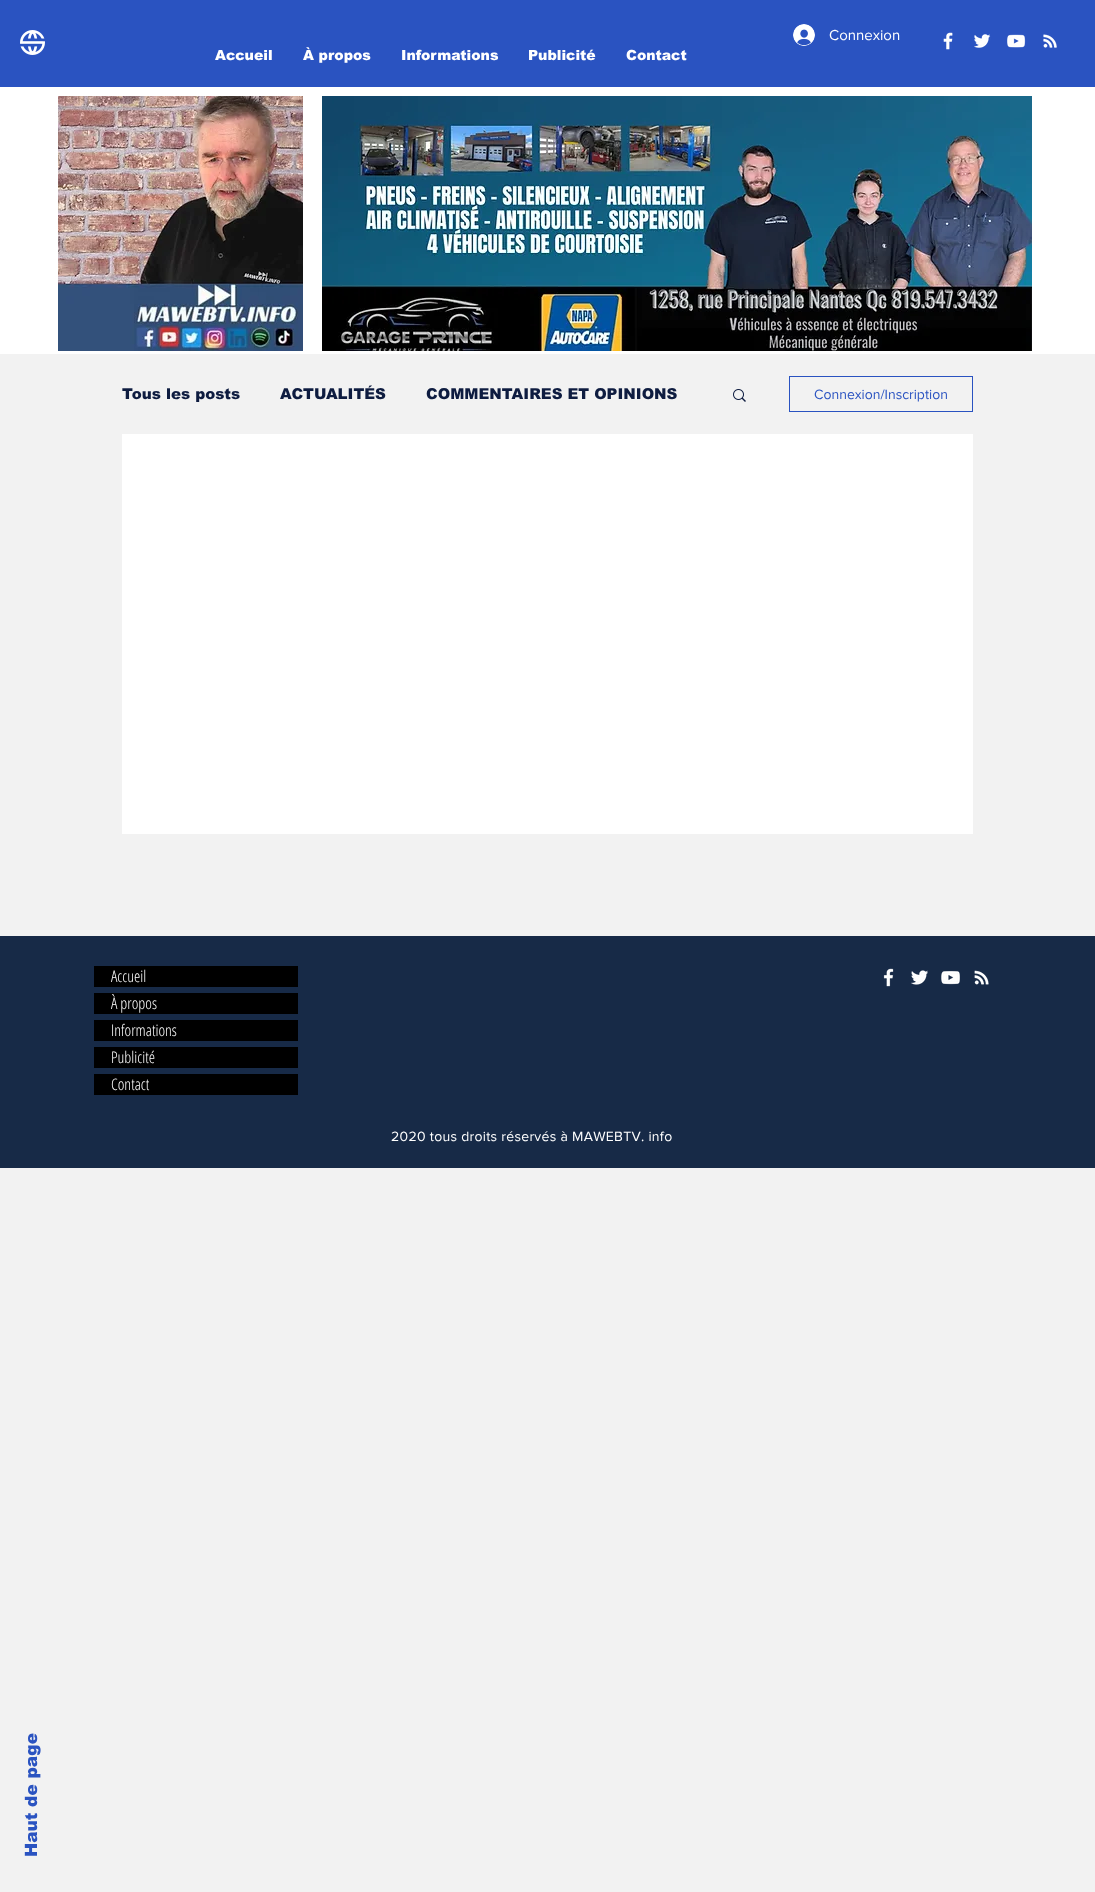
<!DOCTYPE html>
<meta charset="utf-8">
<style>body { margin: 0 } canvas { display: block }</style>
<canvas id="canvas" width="1095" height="1892"></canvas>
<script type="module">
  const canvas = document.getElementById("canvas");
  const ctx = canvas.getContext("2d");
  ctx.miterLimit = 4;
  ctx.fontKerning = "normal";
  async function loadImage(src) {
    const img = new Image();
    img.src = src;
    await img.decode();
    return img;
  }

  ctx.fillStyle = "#f2f2f2";
  ctx.fillRect(0, 0, 1095, 1892);
  ctx.fillStyle = "#2a53c1";
  ctx.fillRect(0, 0, 1095, 87);
  ctx.drawImage(await loadImage("img1.png"), 20, 30, 25, 25);
  ctx.drawImage(await loadImage("img2.png"), 793, 24, 22, 22);
  ctx.font = "15px 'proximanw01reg'";
  ctx.fillStyle = "#ffffff";
  ctx.fillText("Connexion", 829, 40);
  ctx.drawImage(await loadImage("img3.png"), 943, 32, 10, 18);
  ctx.drawImage(await loadImage("img4.png"), 974, 34, 17, 14);
  ctx.drawImage(await loadImage("img5.png"), 1007, 34, 19, 14);
  ctx.drawImage(await loadImage("img6.png"), 1043, 34, 14, 14);
  ctx.font = "900 14px arial";
  ctx.fillText("Accueil", 215, 60);
  ctx.fillText("À propos", 303, 60);
  ctx.fillText("Informations", 401, 60);
  ctx.fillText("Publicité", 528, 60);
  ctx.fillText("Contact", 626, 60);
  ctx.fillRect(0, 87, 1095, 267);
  ctx.drawImage(await loadImage("img7.png"), 58, 96, 245, 255);
  ctx.drawImage(await loadImage("img8.png"), 322, 96, 710, 255);
  ctx.fillRect(122, 434, 851, 400);
  ctx.font = "900 15px arial";
  ctx.fillStyle = "#0e1c40";
  ctx.fillText("Tous les posts", 122, 399);
  ctx.fillText("ACTUALITÉS", 280, 399);
  ctx.fillText("COMMENTAIRES ET OPINIONS", 426, 399);
  ctx.drawImage(await loadImage("img9.png"), 733, 389, 13, 13);
  ctx.strokeStyle = "#2a53c1";
  ctx.strokeRect(789.5, 376.5, 183, 35);
  ctx.font = "14px 'proximanw01reg'";
  ctx.fillStyle = "#2a53c1";
  ctx.fillText("Connexion/Inscription", 814, 399);
  ctx.fillStyle = "#172a47";
  ctx.fillRect(0, 936, 1095, 232);
  ctx.fillStyle = "#000000";
  ctx.fillRect(94, 966, 204, 21);
  ctx.font = "300 16px Open Sans Condensed";
  ctx.fillStyle = "#ffffff";
  ctx.fillText("Accueil", 111, 982);
  ctx.fillStyle = "#000000";
  ctx.fillRect(94, 993, 204, 21);
  ctx.fillStyle = "#ffffff";
  ctx.fillText("À propos", 111, 1009);
  ctx.fillStyle = "#000000";
  ctx.fillRect(94, 1020, 204, 21);
  ctx.fillStyle = "#ffffff";
  ctx.fillText("Informations", 111, 1036);
  ctx.fillStyle = "#000000";
  ctx.fillRect(94, 1047, 204, 21);
  ctx.fillStyle = "#ffffff";
  ctx.fillText("Publicité", 111, 1063);
  ctx.fillStyle = "#000000";
  ctx.fillRect(94, 1074, 204, 21);
  ctx.fillStyle = "#ffffff";
  ctx.fillText("Contact", 111, 1090);
  ctx.drawImage(await loadImage("img10.png"), 883, 968, 11, 19);
  ctx.drawImage(await loadImage("img11.png"), 911, 970, 17, 15);
  ctx.drawImage(await loadImage("img12.png"), 941, 971, 19, 14);
  ctx.drawImage(await loadImage("img13.png"), 974, 970, 15, 15);
  ctx.letterSpacing = "0.3px";
  ctx.font = "14px 'proximanw01reg'";
  ctx.fillText("2020 tous droits réservés à MAWEBTV. info", 391, 1141);
  ctx.letterSpacing = "0px";
  ctx.font = "900 17px arial";
  ctx.fillStyle = "#2a53c1";
  ctx.save();
  ctx.translate(37, 1857);
  ctx.rotate(-90 * Math.PI / 180);
  ctx.fillText("Haut de page", 0, 0);
  ctx.restore();
</script>
